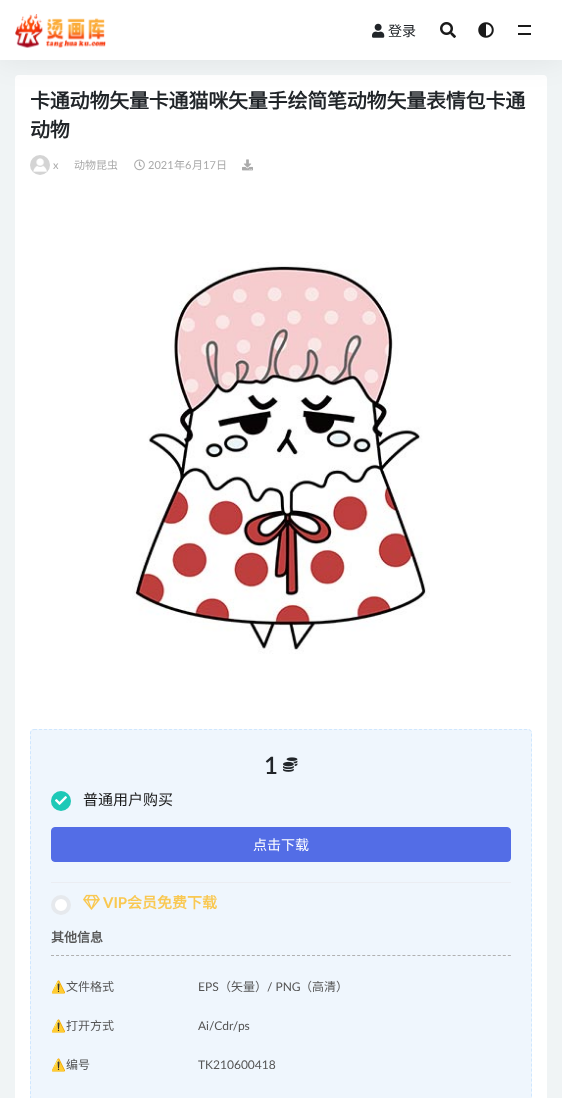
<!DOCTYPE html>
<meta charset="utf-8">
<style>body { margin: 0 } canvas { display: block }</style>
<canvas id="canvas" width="562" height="1098"></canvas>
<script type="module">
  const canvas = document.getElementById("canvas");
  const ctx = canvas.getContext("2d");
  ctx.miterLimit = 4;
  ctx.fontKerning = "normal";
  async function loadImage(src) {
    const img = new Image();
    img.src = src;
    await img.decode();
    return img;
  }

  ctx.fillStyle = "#f0f4f5";
  ctx.fillRect(0, 0, 562, 1098);
  ctx.fillStyle = "#ffffff";
  ctx.beginPath();
  ctx.roundRect(15, 75, 532, 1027, 4);
  ctx.fill();
  ctx.fillStyle = "rgba(0, 0, 0, 0.07)";
  ctx.filter = "blur(15px)";
  ctx.beginPath();
  ctx.rect(0, 0, 562, 60);
  ctx.fill();
  ctx.filter = "none";
  ctx.fillStyle = "#ffffff";
  ctx.fillRect(0, 0, 562, 60);
  ctx.drawImage(await loadImage("img1.png"), 15, 14, 91, 34);
  ctx.drawImage(await loadImage("img2.png"), 372, 23, 13, 15);
  ctx.font = "14px Noto Sans CJK SC";
  ctx.fillStyle = "#212529";
  ctx.fillText("登录", 388, 36);
  ctx.drawImage(await loadImage("img3.png"), 440, 22, 16, 16);
  ctx.drawImage(await loadImage("img4.png"), 478, 22, 16, 16);
  ctx.fillStyle = "#1a1a1a";
  ctx.fillRect(518, 25, 13, 2);
  ctx.fillRect(518, 33, 13, 2);
  ctx.letterSpacing = "-0.2px";
  ctx.font = "bold 20px Noto Sans CJK SC";
  ctx.fillStyle = "#212529";
  ctx.fillText("卡通动物矢量卡通猫咪矢量手绘简笔动物矢量表情包卡通", 30, 108);
  ctx.fillText("动物", 30, 137);
  ctx.drawImage(await loadImage("img5.png"), 30, 155, 20, 20);
  ctx.letterSpacing = "0px";
  ctx.font = "11px Lato";
  ctx.fillStyle = "#aaaaaa";
  ctx.fillText("x", 53, 169);
  ctx.font = "11px Noto Sans CJK SC";
  ctx.fillText("动物昆虫", 74, 169);
  ctx.drawImage(await loadImage("img6.png"), 134, 159, 11, 12);
  ctx.font = "11px Lato";
  ctx.fillText("2021", 148, 169);
  ctx.font = "11px Noto Sans CJK SC";
  ctx.fillText("年", 174, 169);
  ctx.font = "11px Lato";
  ctx.fillText("6", 185, 169);
  ctx.font = "11px Noto Sans CJK SC";
  ctx.fillText("月", 192, 169);
  ctx.font = "11px Lato";
  ctx.fillText("17", 203, 169);
  ctx.font = "11px Noto Sans CJK SC";
  ctx.fillText("日", 216, 169);
  ctx.drawImage(await loadImage("img7.png"), 242, 159, 11, 12);
  ctx.drawImage(await loadImage("img8.png"), 132, 262, 298, 392);
  ctx.fillStyle = "#eff6fd";
  ctx.beginPath();
  ctx.roundRect(30, 729, 502, 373, 4);
  ctx.fill();
  ctx.beginPath();
  ctx.moveTo(34, 729.5);
  ctx.lineTo(528, 729.5);
  ctx.bezierCurveTo(530, 729.5, 531.5, 731, 531.5, 733);
  ctx.lineTo(531.5, 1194);
  ctx.bezierCurveTo(531.5, 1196, 530, 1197.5, 528, 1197.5);
  ctx.lineTo(34, 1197.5);
  ctx.bezierCurveTo(32, 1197.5, 30.5, 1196, 30.5, 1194);
  ctx.lineTo(30.5, 733);
  ctx.bezierCurveTo(30.5, 731, 32, 729.5, 34, 729.5);
  ctx.closePath();
  ctx.strokeStyle = "#cfe7ff";
  ctx.setLineDash([3, 2]);
  ctx.stroke();
  ctx.font = "600 24px Lato";
  ctx.fillStyle = "#212529";
  ctx.fillText("1", 264, 774);
  ctx.drawImage(await loadImage("img9.png"), 283, 757, 15, 15);
  ctx.beginPath();
  ctx.arc(61, 801, 8, 0, Math.PI * 2);
  ctx.strokeStyle = "#e6e9ed";
  ctx.lineWidth = 4;
  ctx.setLineDash([]);
  ctx.stroke();
  ctx.fillStyle = "#1dc9b7";
  ctx.beginPath();
  ctx.arc(61, 801, 10, 0, Math.PI * 2);
  ctx.fill();
  ctx.drawImage(await loadImage("img10.png"), 55, 796, 12, 9);
  ctx.font = "15px Noto Sans CJK SC";
  ctx.fillStyle = "#1a1a1a";
  ctx.fillText("普通用户购买", 83, 805);
  ctx.fillStyle = "#536de6";
  ctx.beginPath();
  ctx.roundRect(51.5, 827.5, 459, 34, 3.5);
  ctx.fill();
  ctx.strokeStyle = "#536de6";
  ctx.lineWidth = 1;
  ctx.stroke();
  ctx.font = "14px Noto Sans CJK SC";
  ctx.fillStyle = "#ffffff";
  ctx.fillText("点击下载", 253, 850);
  ctx.fillStyle = "#ebedf2";
  ctx.fillRect(51, 882, 460, 1);
  ctx.fillStyle = "#ffffff";
  ctx.beginPath();
  ctx.arc(61, 905, 8, 0, Math.PI * 2);
  ctx.fill();
  ctx.strokeStyle = "#e6e9ed";
  ctx.lineWidth = 4;
  ctx.stroke();
  ctx.drawImage(await loadImage("img11.png"), 83, 894, 17, 16);
  ctx.font = "bold 15px Lato";
  ctx.fillStyle = "#f9c851";
  ctx.fillText("VIP", 103, 908);
  ctx.font = "bold 15px Noto Sans CJK SC";
  ctx.fillText("会员免费下载", 127, 908);
  ctx.beginPath();
  ctx.moveTo(51, 955.5);
  ctx.lineTo(511, 955.5);
  ctx.strokeStyle = "#b1b1b1";
  ctx.lineWidth = 1;
  ctx.setLineDash([3, 2.02]);
  ctx.stroke();
  ctx.font = "bold 13px Noto Sans CJK SC";
  ctx.fillStyle = "#555555";
  ctx.fillText("其他信息", 51, 942);
  ctx.font = "12px Noto Color Emoji";
  ctx.fillText("⚠️", 51, 991);
  ctx.font = "12px Noto Sans CJK SC";
  ctx.fillText("文件格式", 66, 991);
  ctx.font = "12px Lato";
  ctx.fillText("EPS", 198, 991);
  ctx.font = "12px Noto Sans CJK SC";
  ctx.fillText("（矢量）", 219, 991);
  ctx.font = "12px Lato";
  ctx.fillText("/ PNG", 267, 991);
  ctx.font = "12px Noto Sans CJK SC";
  ctx.fillText("（高清）", 300, 991);
  ctx.font = "12px Noto Color Emoji";
  ctx.fillText("⚠️", 51, 1030);
  ctx.font = "12px Noto Sans CJK SC";
  ctx.fillText("打开方式", 66, 1030);
  ctx.font = "12px Lato";
  ctx.fillText("Ai/Cdr/ps", 198, 1030);
  ctx.font = "12px Noto Color Emoji";
  ctx.fillText("⚠️", 51, 1069);
  ctx.font = "12px Noto Sans CJK SC";
  ctx.fillText("编号", 66, 1069);
  ctx.font = "12px Lato";
  ctx.fillText("TK210600418", 198, 1069);
</script>
